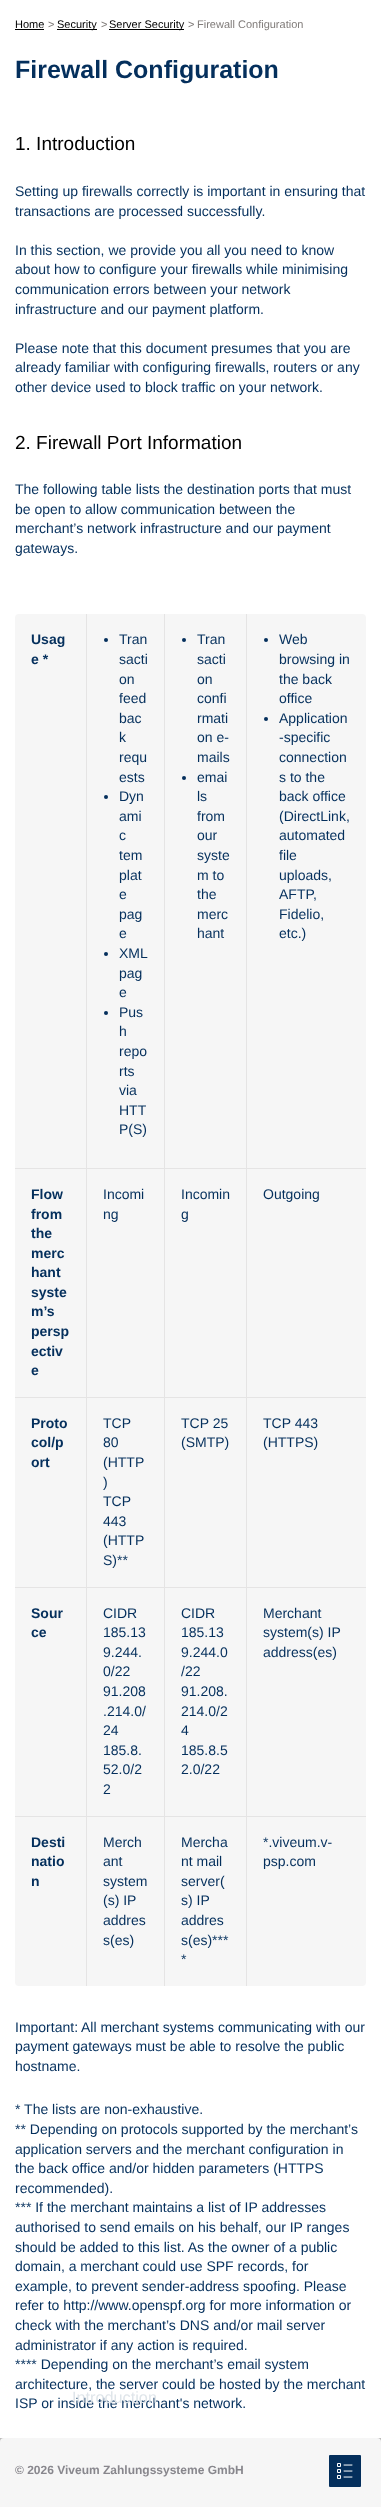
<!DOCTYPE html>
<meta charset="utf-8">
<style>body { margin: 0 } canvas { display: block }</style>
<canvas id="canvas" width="381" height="2507"></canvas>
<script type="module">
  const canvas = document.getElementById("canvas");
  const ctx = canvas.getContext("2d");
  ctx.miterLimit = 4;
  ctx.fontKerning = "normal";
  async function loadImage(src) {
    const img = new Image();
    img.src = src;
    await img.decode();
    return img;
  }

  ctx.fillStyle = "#bbbbbb";
  ctx.fillRect(0, 0, 381, 2507);
  ctx.fillStyle = "#ffffff";
  ctx.fillRect(0, 0, 381, 2438);
  ctx.font = "11px Liberation Sans";
  ctx.fillStyle = "#000000";
  ctx.fillText("Home", 15, 28);
  ctx.fillRect(15, 29, 29, 1);
  ctx.fillStyle = "#807c7a";
  ctx.fillText(">", 48, 28);
  ctx.fillStyle = "#000000";
  ctx.fillRect(57, 29, 40, 1);
  ctx.fillText("Security", 57, 28);
  ctx.fillStyle = "#807c7a";
  ctx.fillText(">", 101, 28);
  ctx.fillStyle = "#000000";
  ctx.fillRect(109, 29, 75, 1);
  ctx.fillText("Server Security", 109, 28);
  ctx.fillStyle = "#807c7a";
  ctx.fillText(">", 188, 28);
  ctx.fillText("Firewall Configuration", 197, 28);
  ctx.font = "bold 25px Liberation Sans";
  ctx.fillStyle = "#042f5c";
  ctx.fillText("Firewall Configuration", 15, 78);
  ctx.font = "19px Liberation Sans";
  ctx.fillStyle = "#000000";
  ctx.fillText("1. Introduction", 15, 150);
  ctx.font = "14px Liberation Sans";
  ctx.fillStyle = "#042f5c";
  ctx.fillText("Setting up firewalls correctly is important in ensuring that", 15, 196);
  ctx.fillText("transactions are processed successfully.", 15, 216);
  ctx.fillText("In this section, we provide you all you need to know", 15, 255);
  ctx.fillText("about how to configure your firewalls while minimising", 15, 274);
  ctx.fillText("communication errors between your network", 15, 294);
  ctx.fillText("infrastructure and our payment platform.", 15, 314);
  ctx.fillText("Please note that this document presumes that you are", 15, 353);
  ctx.fillText("already familiar with configuring firewalls, routers or any", 15, 372);
  ctx.fillText("other device used to block traffic on your network.", 15, 392);
  ctx.font = "19px Liberation Sans";
  ctx.fillStyle = "#000000";
  ctx.fillText("2. Firewall Port Information", 15, 449);
  ctx.font = "14px Liberation Sans";
  ctx.fillStyle = "#042f5c";
  ctx.fillText("The following table lists the destination ports that must", 15, 494);
  ctx.fillText("be open to allow communication between the", 15, 514);
  ctx.fillText("merchant’s network infrastructure and our payment", 15, 533);
  ctx.fillText("gateways.", 15, 553);
  ctx.fillStyle = "#f6f6f6";
  ctx.beginPath();
  ctx.roundRect(15, 614, 351, 1372, 4);
  ctx.fill();
  ctx.font = "bold 14px Liberation Sans";
  ctx.fillStyle = "#042f5c";
  ctx.fillText("Usag", 31, 644);
  ctx.fillText("e *", 31, 664);
  ctx.fillStyle = "#e5e4e4";
  ctx.fillRect(86, 614, 1, 554);
  ctx.fillStyle = "#042f5c";
  ctx.beginPath();
  ctx.arc(106, 640, 2, 0, Math.PI * 2);
  ctx.fill();
  ctx.font = "14px Liberation Sans";
  ctx.fillText("Tran", 119, 644);
  ctx.fillText("sacti", 119, 664);
  ctx.fillText("on", 119, 684);
  ctx.fillText("feed", 119, 703);
  ctx.fillText("bac", 119, 723);
  ctx.fillText("k", 119, 742);
  ctx.fillText("requ", 119, 762);
  ctx.fillText("ests", 119, 782);
  ctx.beginPath();
  ctx.arc(106, 797, 2, 0, Math.PI * 2);
  ctx.fill();
  ctx.fillText("Dyn", 119, 801);
  ctx.fillText("ami", 119, 821);
  ctx.fillText("c", 119, 840);
  ctx.fillText("tem", 119, 860);
  ctx.fillText("plat", 119, 880);
  ctx.fillText("e", 119, 899);
  ctx.fillText("pag", 119, 919);
  ctx.fillText("e", 119, 938);
  ctx.beginPath();
  ctx.arc(106, 954, 2, 0, Math.PI * 2);
  ctx.fill();
  ctx.fillText("XML", 119, 958);
  ctx.fillText("pag", 119, 978);
  ctx.fillText("e", 119, 997);
  ctx.beginPath();
  ctx.arc(106, 1013, 2, 0, Math.PI * 2);
  ctx.fill();
  ctx.fillText("Pus", 119, 1017);
  ctx.fillText("h", 119, 1036);
  ctx.fillText("repo", 119, 1056);
  ctx.fillText("rts", 119, 1076);
  ctx.fillText("via", 119, 1095);
  ctx.fillText("HTT", 119, 1115);
  ctx.fillText("P(S)", 119, 1134);
  ctx.fillStyle = "#e5e4e4";
  ctx.fillRect(164, 614, 1, 554);
  ctx.fillStyle = "#042f5c";
  ctx.beginPath();
  ctx.arc(184, 640, 2, 0, Math.PI * 2);
  ctx.fill();
  ctx.fillText("Tran", 197, 644);
  ctx.fillText("sacti", 197, 664);
  ctx.fillText("on", 197, 684);
  ctx.fillText("confi", 197, 703);
  ctx.fillText("rmati", 197, 723);
  ctx.fillText("on e-", 197, 742);
  ctx.fillText("mails", 197, 762);
  ctx.beginPath();
  ctx.arc(184, 778, 2, 0, Math.PI * 2);
  ctx.fill();
  ctx.fillText("emai", 197, 782);
  ctx.fillText("ls", 197, 801);
  ctx.fillText("from", 197, 821);
  ctx.fillText("our", 197, 840);
  ctx.fillText("syste", 197, 860);
  ctx.fillText("m to", 197, 880);
  ctx.fillText("the", 197, 899);
  ctx.fillText("merc", 197, 919);
  ctx.fillText("hant", 197, 938);
  ctx.fillStyle = "#e5e4e4";
  ctx.fillRect(246, 614, 1, 554);
  ctx.fillStyle = "#042f5c";
  ctx.beginPath();
  ctx.arc(266, 640, 2, 0, Math.PI * 2);
  ctx.fill();
  ctx.fillText("Web", 279, 644);
  ctx.fillText("browsing in", 279, 664);
  ctx.fillText("the back", 279, 684);
  ctx.fillText("office", 279, 703);
  ctx.beginPath();
  ctx.arc(266, 719, 2, 0, Math.PI * 2);
  ctx.fill();
  ctx.fillText("Application", 279, 723);
  ctx.fillText("-specific", 279, 742);
  ctx.fillText("connection", 279, 762);
  ctx.fillText("s to the", 279, 782);
  ctx.fillText("back office", 279, 801);
  ctx.fillText("(DirectLink,", 279, 821);
  ctx.fillText("automated", 279, 840);
  ctx.fillText("file", 279, 860);
  ctx.fillText("uploads,", 279, 880);
  ctx.fillText("AFTP,", 279, 899);
  ctx.fillText("Fidelio,", 279, 919);
  ctx.fillText("etc.)", 279, 938);
  ctx.fillStyle = "#e5e4e4";
  ctx.fillRect(15, 1168, 351, 1);
  ctx.font = "bold 14px Liberation Sans";
  ctx.fillStyle = "#042f5c";
  ctx.fillText("Flow", 31, 1199);
  ctx.fillText("from", 31, 1219);
  ctx.fillText("the", 31, 1238);
  ctx.fillText("merc", 31, 1258);
  ctx.fillText("hant", 31, 1277);
  ctx.fillText("syste", 31, 1297);
  ctx.fillText("m’s", 31, 1316);
  ctx.fillText("persp", 31, 1336);
  ctx.fillText("ectiv", 31, 1356);
  ctx.fillText("e", 31, 1375);
  ctx.fillStyle = "#e5e4e4";
  ctx.fillRect(86, 1168, 1, 229);
  ctx.font = "14px Liberation Sans";
  ctx.fillStyle = "#042f5c";
  ctx.fillText("Incomi", 103, 1199);
  ctx.fillText("ng", 103, 1219);
  ctx.fillStyle = "#e5e4e4";
  ctx.fillRect(164, 1168, 1, 229);
  ctx.fillStyle = "#042f5c";
  ctx.fillText("Incomin", 181, 1199);
  ctx.fillText("g", 181, 1219);
  ctx.fillStyle = "#e5e4e4";
  ctx.fillRect(246, 1168, 1, 229);
  ctx.fillStyle = "#042f5c";
  ctx.fillText("Outgoing", 263, 1199);
  ctx.fillStyle = "#e5e4e4";
  ctx.fillRect(15, 1397, 351, 1);
  ctx.font = "bold 14px Liberation Sans";
  ctx.fillStyle = "#042f5c";
  ctx.fillText("Proto", 31, 1428);
  ctx.fillText("col/p", 31, 1447);
  ctx.fillText("ort", 31, 1467);
  ctx.fillStyle = "#e5e4e4";
  ctx.fillRect(86, 1397, 1, 190);
  ctx.font = "14px Liberation Sans";
  ctx.fillStyle = "#042f5c";
  ctx.fillText("TCP", 103, 1428);
  ctx.fillText("80", 103, 1447);
  ctx.fillText("(HTTP", 103, 1467);
  ctx.fillText(")", 103, 1487);
  ctx.fillText("TCP", 103, 1506);
  ctx.fillText("443", 103, 1526);
  ctx.fillText("(HTTP", 103, 1545);
  ctx.fillText("S)**", 103, 1565);
  ctx.fillStyle = "#e5e4e4";
  ctx.fillRect(164, 1397, 1, 190);
  ctx.fillStyle = "#042f5c";
  ctx.fillText("TCP 25", 181, 1428);
  ctx.fillText("(SMTP)", 181, 1447);
  ctx.fillStyle = "#e5e4e4";
  ctx.fillRect(246, 1397, 1, 190);
  ctx.fillStyle = "#042f5c";
  ctx.fillText("TCP 443", 263, 1428);
  ctx.fillText("(HTTPS)", 263, 1447);
  ctx.fillStyle = "#e5e4e4";
  ctx.fillRect(15, 1587, 351, 1);
  ctx.font = "bold 14px Liberation Sans";
  ctx.fillStyle = "#042f5c";
  ctx.fillText("Sour", 31, 1618);
  ctx.fillText("ce", 31, 1637);
  ctx.fillStyle = "#e5e4e4";
  ctx.fillRect(86, 1587, 1, 229);
  ctx.font = "14px Liberation Sans";
  ctx.fillStyle = "#042f5c";
  ctx.fillText("CIDR", 103, 1618);
  ctx.fillText("185.13", 103, 1637);
  ctx.fillText("9.244.", 103, 1657);
  ctx.fillText("0/22", 103, 1676);
  ctx.fillText("91.208", 103, 1696);
  ctx.fillText(".214.0/", 103, 1716);
  ctx.fillText("24", 103, 1735);
  ctx.fillText("185.8.", 103, 1755);
  ctx.fillText("52.0/2", 103, 1774);
  ctx.fillText("2", 103, 1794);
  ctx.fillStyle = "#e5e4e4";
  ctx.fillRect(164, 1587, 1, 229);
  ctx.fillStyle = "#042f5c";
  ctx.fillText("CIDR", 181, 1618);
  ctx.fillText("185.13", 181, 1637);
  ctx.fillText("9.244.0", 181, 1657);
  ctx.fillText("/22", 181, 1676);
  ctx.fillText("91.208.", 181, 1696);
  ctx.fillText("214.0/2", 181, 1716);
  ctx.fillText("4", 181, 1735);
  ctx.fillText("185.8.5", 181, 1755);
  ctx.fillText("2.0/22", 181, 1774);
  ctx.fillStyle = "#e5e4e4";
  ctx.fillRect(246, 1587, 1, 229);
  ctx.fillStyle = "#042f5c";
  ctx.fillText("Merchant", 263, 1618);
  ctx.fillText("system(s) IP", 263, 1637);
  ctx.fillText("address(es)", 263, 1657);
  ctx.fillStyle = "#e5e4e4";
  ctx.fillRect(15, 1816, 351, 1);
  ctx.font = "bold 14px Liberation Sans";
  ctx.fillStyle = "#042f5c";
  ctx.fillText("Desti", 31, 1847);
  ctx.fillText("natio", 31, 1866);
  ctx.fillText("n", 31, 1886);
  ctx.fillStyle = "#e5e4e4";
  ctx.fillRect(86, 1816, 1, 170);
  ctx.font = "14px Liberation Sans";
  ctx.fillStyle = "#042f5c";
  ctx.fillText("Merch", 103, 1847);
  ctx.fillText("ant", 103, 1866);
  ctx.fillText("system", 103, 1886);
  ctx.fillText("(s) IP", 103, 1905);
  ctx.fillText("addres", 103, 1925);
  ctx.fillText("s(es)", 103, 1945);
  ctx.fillStyle = "#e5e4e4";
  ctx.fillRect(164, 1816, 1, 170);
  ctx.fillStyle = "#042f5c";
  ctx.fillText("Mercha", 181, 1847);
  ctx.fillText("nt mail", 181, 1866);
  ctx.fillText("server(", 181, 1886);
  ctx.fillText("s) IP", 181, 1905);
  ctx.fillText("addres", 181, 1925);
  ctx.fillText("s(es)***", 181, 1945);
  ctx.fillText("*", 181, 1964);
  ctx.fillStyle = "#e5e4e4";
  ctx.fillRect(246, 1816, 1, 170);
  ctx.fillStyle = "#042f5c";
  ctx.fillText("*.viveum.v-", 263, 1847);
  ctx.fillText("psp.com", 263, 1866);
  ctx.fillText("Important:", 15, 2032);
  ctx.fillText("All merchant systems communicating with our", 81, 2032);
  ctx.fillText("payment gateways must be able to resolve the public", 15, 2051);
  ctx.fillText("hostname.", 15, 2071);
  ctx.fillText("* The lists are non-exhaustive.", 15, 2114);
  ctx.fillText("** Depending on protocols supported by the merchant’s", 15, 2134);
  ctx.fillText("application servers and the merchant configuration in", 15, 2154);
  ctx.fillText("the back office and/or hidden parameters (HTTPS", 15, 2173);
  ctx.fillText("recommended).", 15, 2193);
  ctx.fillText("*** If the merchant maintains a list of IP addresses", 15, 2212);
  ctx.fillText("authorised to send emails on his behalf, our IP ranges", 15, 2232);
  ctx.fillText("should be added to this list. As the owner of a public", 15, 2252);
  ctx.fillText("domain, a merchant could use SPF records, for", 15, 2271);
  ctx.fillText("example, to prevent sender-address spoofing. Please", 15, 2291);
  ctx.fillText("refer to http://www.openspf.org for more information or", 15, 2310);
  ctx.fillText("check with the merchant’s DNS and/or mail server", 15, 2330);
  ctx.fillText("administrator if any action is required.", 15, 2350);
  ctx.fillText("**** Depending on the merchant’s email system", 15, 2369);
  ctx.fillText("architecture, the server could be hosted by the merchant", 15, 2389);
  ctx.fillText("ISP or inside the merchant's network.", 15, 2408);
  ctx.font = "16.25px Liberation Sans";
  ctx.fillStyle = "#dfe5ea";
  ctx.fillText("Introduction", 72, 2403);
  ctx.fillStyle = "#f6f6f6";
  ctx.beginPath();
  ctx.roundRect(0, 2438, 381, 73, 4);
  ctx.fill();
  ctx.fillStyle = "#042f5c";
  ctx.beginPath();
  ctx.roundRect(329, 2455, 32, 32, 1);
  ctx.fill();
  ctx.drawImage(await loadImage("img1.png"), 337, 2463, 16, 16);
  ctx.font = "bold 12px Liberation Sans";
  ctx.fillStyle = "#88878d";
  ctx.fillText("© 2026 Viveum Zahlungssysteme GmbH", 15, 2474);
</script>
